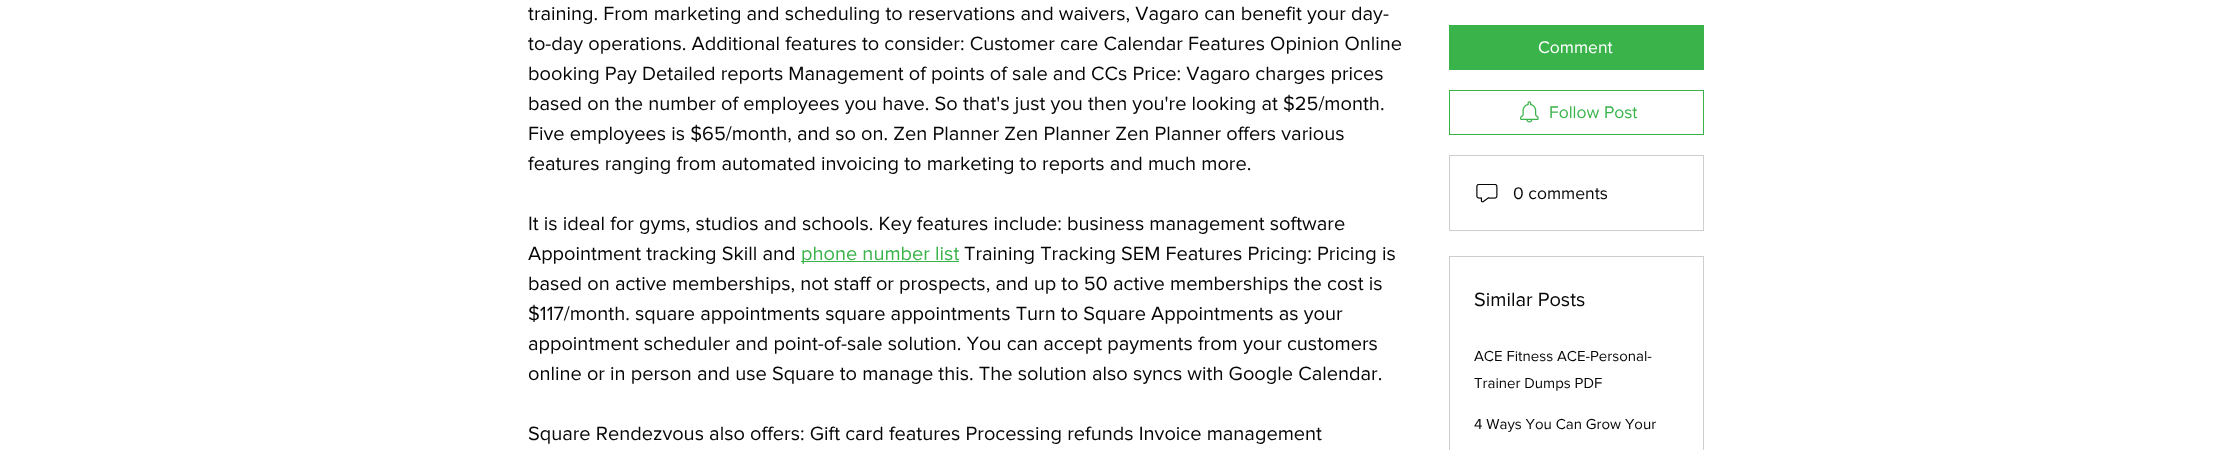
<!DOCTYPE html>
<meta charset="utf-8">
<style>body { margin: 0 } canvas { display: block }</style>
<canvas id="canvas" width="2231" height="450"></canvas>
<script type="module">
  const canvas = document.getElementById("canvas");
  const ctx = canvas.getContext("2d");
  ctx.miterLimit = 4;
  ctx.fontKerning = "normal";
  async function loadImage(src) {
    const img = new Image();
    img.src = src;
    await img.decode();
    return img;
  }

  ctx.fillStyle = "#ffffff";
  ctx.fillRect(0, 0, 2231, 450);
  ctx.font = "20px 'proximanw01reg'";
  ctx.fillStyle = "#060607";
  ctx.fillText("training. From marketing and scheduling to reservations and waivers, Vagaro can benefit your day-", 528, 20);
  ctx.fillText("to-day operations. Additional features to consider: Customer care Calendar Features Opinion Online", 528, 50);
  ctx.fillText("booking Pay Detailed reports Management of points of sale and CCs Price: Vagaro charges prices", 528, 80);
  ctx.fillText("based on the number of employees you have. So that's just you then you're looking at $25/month.", 528, 110);
  ctx.fillText("Five employees is $65/month, and so on. Zen Planner Zen Planner Zen Planner offers various", 528, 140);
  ctx.fillText("features ranging from automated invoicing to marketing to reports and much more.", 528, 170);
  ctx.fillText("It is ideal for gyms, studios and schools. Key features include: business management software", 528, 230);
  ctx.fillText("Appointment tracking Skill and", 528, 260);
  ctx.fillStyle = "#3bb34b";
  ctx.fillRect(801, 261, 158, 1);
  ctx.fillText("phone number list", 801, 260);
  ctx.fillStyle = "#060607";
  ctx.fillText("Training Tracking SEM Features Pricing: Pricing is", 964, 260);
  ctx.fillText("based on active memberships, not staff or prospects, and up to 50 active memberships the cost is", 528, 290);
  ctx.fillText("$117/month. square appointments square appointments Turn to Square Appointments as your", 528, 320);
  ctx.fillText("appointment scheduler and point-of-sale solution. You can accept payments from your customers", 528, 350);
  ctx.fillText("online or in person and use Square to manage this. The solution also syncs with Google Calendar.", 528, 380);
  ctx.fillText("Square Rendezvous also offers: Gift card features Processing refunds Invoice management", 528, 440);
  ctx.fillStyle = "#3bb34b";
  ctx.fillRect(1449, 25, 255, 45);
  ctx.font = "17.5px 'proximanw01reg'";
  ctx.fillStyle = "#ffffff";
  ctx.fillText("Comment", 1538, 53);
  ctx.strokeStyle = "#3bb34b";
  ctx.strokeRect(1449.5, 90.5, 254, 44);
  ctx.drawImage(await loadImage("img1.png"), 1520, 101, 19, 22);
  ctx.fillStyle = "#3bb34b";
  ctx.fillText("Follow Post", 1549, 118);
  ctx.strokeStyle = "#cdcdcd";
  ctx.strokeRect(1449.5, 155.5, 254, 75);
  ctx.drawImage(await loadImage("img2.png"), 1476, 184, 22, 19);
  ctx.fillStyle = "#060607";
  ctx.fillText("0 comments", 1513, 199);
  ctx.strokeRect(1449.5, 256.5, 254, 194);
  ctx.font = "20px 'proximanw01reg'";
  ctx.fillText("Similar Posts", 1474, 306);
  ctx.font = "15px 'proximanw01reg'";
  ctx.fillText("ACE Fitness ACE-Personal-", 1474, 361);
  ctx.fillText("Trainer Dumps PDF", 1474, 388);
  ctx.fillText("4 Ways You Can Grow Your", 1474, 429);
</script>
